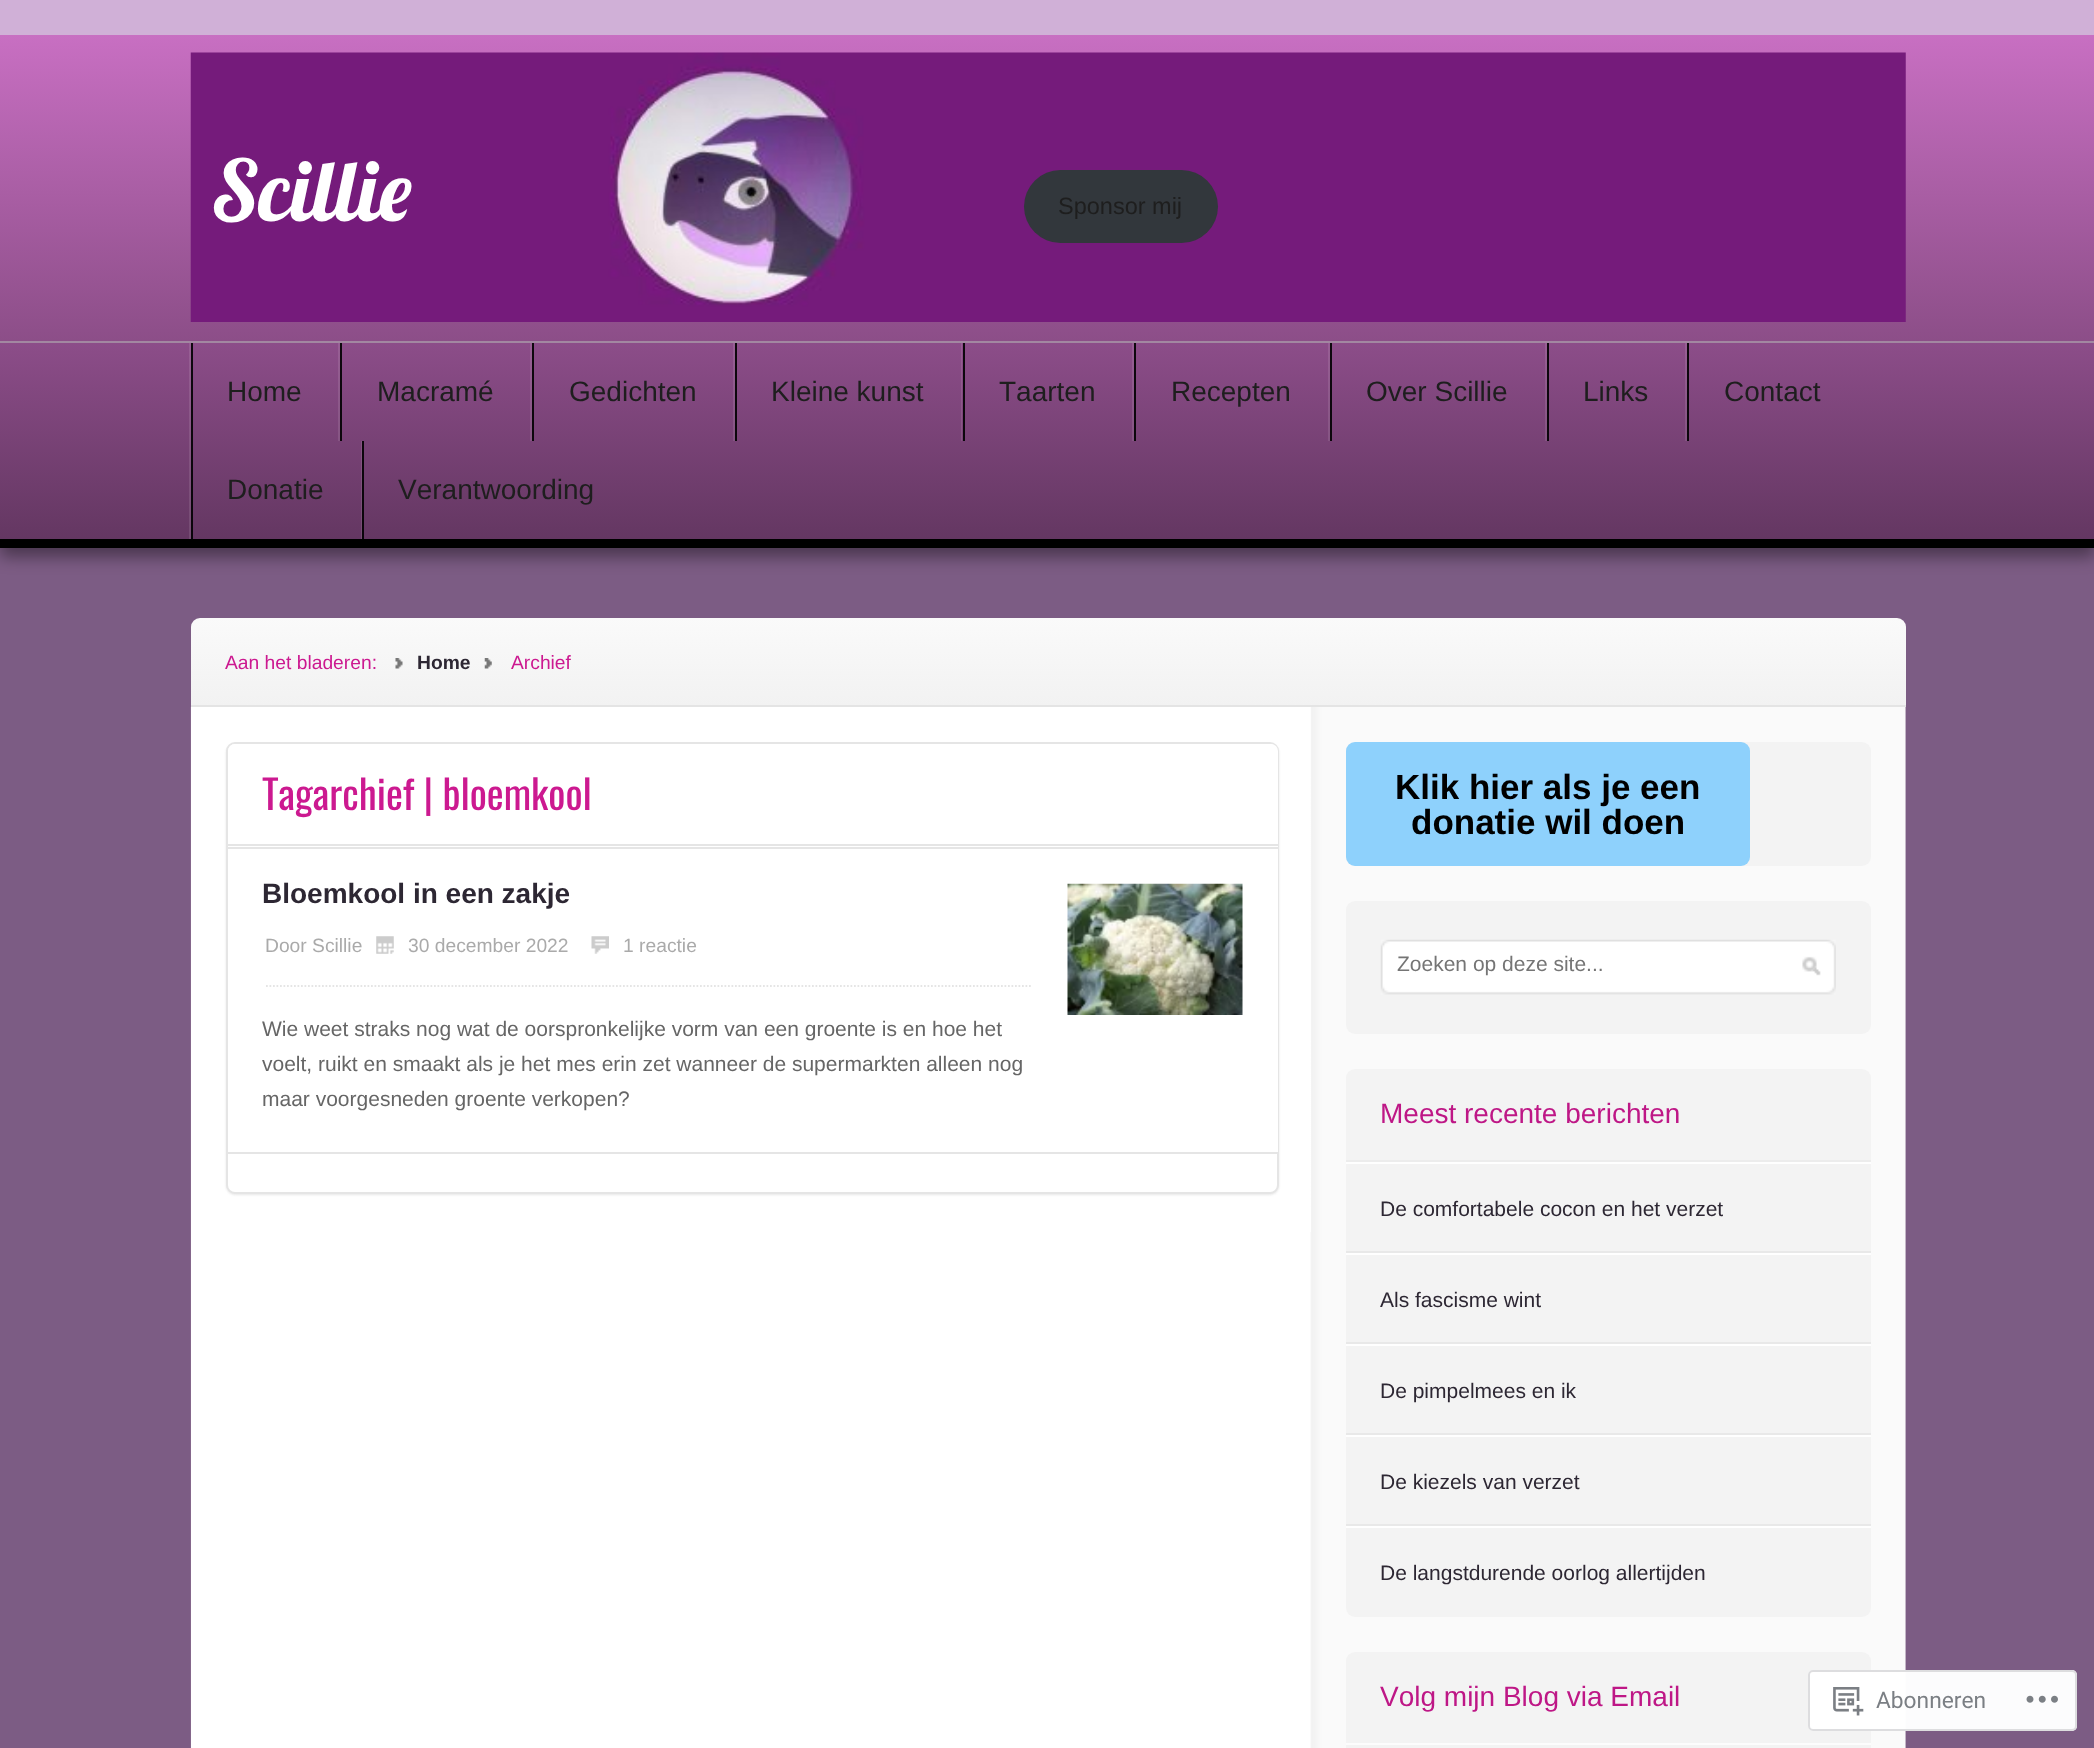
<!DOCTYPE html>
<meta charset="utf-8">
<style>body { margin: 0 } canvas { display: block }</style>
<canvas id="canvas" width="2094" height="1748"></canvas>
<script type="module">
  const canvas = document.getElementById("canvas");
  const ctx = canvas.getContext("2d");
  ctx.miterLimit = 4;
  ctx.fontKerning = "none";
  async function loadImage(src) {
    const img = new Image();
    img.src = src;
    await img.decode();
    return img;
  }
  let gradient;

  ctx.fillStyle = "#7c5c84";
  ctx.fillRect(0, 0, 2094, 1748);
  ctx.fillStyle = "#d0b0d7";
  ctx.fillRect(0, 0, 2094, 35);
  ctx.fillStyle = "rgba(0, 0, 0, 0.4)";
  ctx.filter = "blur(8px)";
  ctx.beginPath();
  ctx.rect(0, 350, 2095, 207);
  ctx.fill();
  ctx.filter = "none";
  gradient = ctx.createLinearGradient(0, 35, 0, 341);
  gradient.addColorStop(0, "#c86fc2");
  gradient.addColorStop(1, "#8c4e88");
  ctx.fillStyle = gradient;
  ctx.fillRect(0, 35, 2094, 306);
  ctx.drawImage(await loadImage("img1.png"), 190, 52, 1716, 270);
  ctx.font = "84px Lobster";
  ctx.fillStyle = "#ffffff";
  ctx.fillText("Scillie", 211, 221);
  ctx.fillStyle = "#32373c";
  ctx.beginPath();
  ctx.roundRect(1024, 170, 194, 73, 36.5);
  ctx.fill();
  ctx.font = "23.5px Liberation Sans";
  ctx.fillStyle = "#1e1e1e";
  ctx.fillText("Sponsor mij", 1058, 214);
  gradient = ctx.createLinearGradient(0, 343, 0, 539);
  gradient.addColorStop(0, "#8c4d89");
  gradient.addColorStop(1, "#643762");
  ctx.fillStyle = gradient;
  ctx.fillRect(0, 343, 2094, 196);
  gradient = ctx.createLinearGradient(0, 343, 0, 539);
  gradient.addColorStop(0, "#0e080e");
  gradient.addColorStop(1, "#0a050a");
  ctx.fillStyle = gradient;
  ctx.fillRect(362, 441, 2, 98);
  gradient = ctx.createLinearGradient(0, 343, 0, 539);
  gradient.addColorStop(0, "#985f95");
  gradient.addColorStop(1, "#744b72");
  ctx.fillStyle = gradient;
  ctx.fillRect(361, 441, 1, 98);
  gradient = ctx.createLinearGradient(0, 343, 0, 539);
  gradient.addColorStop(0, "#0e080e");
  gradient.addColorStop(1, "#0a050a");
  ctx.fillStyle = gradient;
  ctx.fillRect(191, 441, 2, 98);
  gradient = ctx.createLinearGradient(0, 343, 0, 539);
  gradient.addColorStop(0, "#985f95");
  gradient.addColorStop(1, "#744b72");
  ctx.fillStyle = gradient;
  ctx.fillRect(189, 441, 2, 98);
  gradient = ctx.createLinearGradient(0, 343, 0, 539);
  gradient.addColorStop(0, "#0e080e");
  gradient.addColorStop(1, "#0a050a");
  ctx.fillStyle = gradient;
  ctx.fillRect(1687, 343, 2, 98);
  gradient = ctx.createLinearGradient(0, 343, 0, 539);
  gradient.addColorStop(0, "#985f95");
  gradient.addColorStop(1, "#744b72");
  ctx.fillStyle = gradient;
  ctx.fillRect(1685, 343, 2, 98);
  gradient = ctx.createLinearGradient(0, 343, 0, 539);
  gradient.addColorStop(0, "#0e080e");
  gradient.addColorStop(1, "#0a050a");
  ctx.fillStyle = gradient;
  ctx.fillRect(1547, 343, 2, 98);
  gradient = ctx.createLinearGradient(0, 343, 0, 539);
  gradient.addColorStop(0, "#985f95");
  gradient.addColorStop(1, "#744b72");
  ctx.fillStyle = gradient;
  ctx.fillRect(1545, 343, 2, 98);
  gradient = ctx.createLinearGradient(0, 343, 0, 539);
  gradient.addColorStop(0, "#0e080e");
  gradient.addColorStop(1, "#0a050a");
  ctx.fillStyle = gradient;
  ctx.fillRect(1330, 343, 2, 98);
  gradient = ctx.createLinearGradient(0, 343, 0, 539);
  gradient.addColorStop(0, "#985f95");
  gradient.addColorStop(1, "#744b72");
  ctx.fillStyle = gradient;
  ctx.fillRect(1328, 343, 2, 98);
  gradient = ctx.createLinearGradient(0, 343, 0, 539);
  gradient.addColorStop(0, "#0e080e");
  gradient.addColorStop(1, "#0a050a");
  ctx.fillStyle = gradient;
  ctx.fillRect(1134, 343, 2, 98);
  gradient = ctx.createLinearGradient(0, 343, 0, 539);
  gradient.addColorStop(0, "#985f95");
  gradient.addColorStop(1, "#744b72");
  ctx.fillStyle = gradient;
  ctx.fillRect(1132, 343, 2, 98);
  gradient = ctx.createLinearGradient(0, 343, 0, 539);
  gradient.addColorStop(0, "#0e080e");
  gradient.addColorStop(1, "#0a050a");
  ctx.fillStyle = gradient;
  ctx.fillRect(963, 343, 2, 98);
  gradient = ctx.createLinearGradient(0, 343, 0, 539);
  gradient.addColorStop(0, "#985f95");
  gradient.addColorStop(1, "#744b72");
  ctx.fillStyle = gradient;
  ctx.fillRect(961, 343, 1, 98);
  gradient = ctx.createLinearGradient(0, 343, 0, 539);
  gradient.addColorStop(0, "#0e080e");
  gradient.addColorStop(1, "#0a050a");
  ctx.fillStyle = gradient;
  ctx.fillRect(735, 343, 2, 98);
  gradient = ctx.createLinearGradient(0, 343, 0, 539);
  gradient.addColorStop(0, "#985f95");
  gradient.addColorStop(1, "#744b72");
  ctx.fillStyle = gradient;
  ctx.fillRect(733, 343, 2, 98);
  gradient = ctx.createLinearGradient(0, 343, 0, 539);
  gradient.addColorStop(0, "#0e080e");
  gradient.addColorStop(1, "#0a050a");
  ctx.fillStyle = gradient;
  ctx.fillRect(532, 343, 2, 98);
  gradient = ctx.createLinearGradient(0, 343, 0, 539);
  gradient.addColorStop(0, "#985f95");
  gradient.addColorStop(1, "#744b72");
  ctx.fillStyle = gradient;
  ctx.fillRect(530, 343, 2, 98);
  gradient = ctx.createLinearGradient(0, 343, 0, 539);
  gradient.addColorStop(0, "#0e080e");
  gradient.addColorStop(1, "#0a050a");
  ctx.fillStyle = gradient;
  ctx.fillRect(340, 343, 2, 98);
  gradient = ctx.createLinearGradient(0, 343, 0, 539);
  gradient.addColorStop(0, "#985f95");
  gradient.addColorStop(1, "#744b72");
  ctx.fillStyle = gradient;
  ctx.fillRect(338, 343, 2, 98);
  gradient = ctx.createLinearGradient(0, 343, 0, 539);
  gradient.addColorStop(0, "#0e080e");
  gradient.addColorStop(1, "#0a050a");
  ctx.fillStyle = gradient;
  ctx.fillRect(191, 343, 2, 98);
  gradient = ctx.createLinearGradient(0, 343, 0, 539);
  gradient.addColorStop(0, "#985f95");
  gradient.addColorStop(1, "#744b72");
  ctx.fillStyle = gradient;
  ctx.fillRect(189, 343, 2, 98);
  ctx.fillStyle = "#a287a1";
  ctx.fillRect(0, 341, 2094, 2);
  ctx.fillStyle = "#000000";
  ctx.fillRect(0, 539, 2094, 9);
  ctx.font = "28px Liberation Sans";
  ctx.fillStyle = "#1e1e1e";
  ctx.fillText("Home", 227, 401);
  ctx.fillText("Macramé", 377, 401);
  ctx.fillText("Gedichten", 569, 401);
  ctx.fillText("Kleine kunst", 771, 401);
  ctx.fillText("Taarten", 999, 401);
  ctx.fillText("Recepten", 1171, 401);
  ctx.fillText("Over Scillie", 1366, 401);
  ctx.fillText("Links", 1583, 401);
  ctx.fillText("Contact", 1724, 401);
  ctx.fillText("Donatie", 227, 499);
  ctx.fillText("Verantwoording", 398, 499);
  gradient = ctx.createLinearGradient(191, 618, 191, 705);
  gradient.addColorStop(0, "#fafafa");
  gradient.addColorStop(1, "#f2f2f2");
  ctx.fillStyle = gradient;
  ctx.beginPath();
  ctx.roundRect(191, 618, 1715, 87, [9, 9, 0, 0]);
  ctx.fill();
  ctx.fillStyle = "#e4e4e4";
  ctx.fillRect(191, 705, 1715, 2);
  ctx.font = "19.25px Liberation Sans";
  ctx.fillStyle = "#cc1990";
  ctx.fillText("Aan het bladeren:", 225, 669);
  ctx.drawImage(await loadImage("img2.png"), 395, 658, 8, 11);
  ctx.font = "bold 19.25px Liberation Sans";
  ctx.fillStyle = "#2d2733";
  ctx.fillText("Home", 417, 669);
  ctx.drawImage(await loadImage("img3.png"), 484, 658, 8, 11);
  ctx.font = "19.25px Liberation Sans";
  ctx.fillStyle = "#cc1990";
  ctx.fillText("Archief", 511, 669);
  ctx.drawImage(await loadImage("img4.png"), 190, 707, 1716, 1041);
  gradient = ctx.createLinearGradient(191, 707, 191, 1232);
  gradient.addColorStop(0, "#fdfdfd");
  gradient.addColorStop(1, "#ffffff");
  ctx.fillStyle = gradient;
  ctx.fillRect(1310, 707, 1, 525);
  ctx.fillStyle = "#e7e7e7";
  ctx.filter = "blur(1px)";
  ctx.beginPath();
  ctx.roundRect(226, 744, 1053, 451, 9);
  ctx.fill();
  ctx.filter = "none";
  ctx.fillStyle = "#ffffff";
  ctx.beginPath();
  ctx.roundRect(227, 743, 1051, 450, 8);
  ctx.fill();
  ctx.strokeStyle = "#e5e5e5";
  ctx.lineWidth = 2;
  ctx.stroke();
  ctx.beginPath();
  ctx.roundRect(228, 744, 1050, 105, [7, 7, 0, 0]);
  ctx.fill();
  ctx.fillStyle = "#e5e5e5";
  ctx.fillRect(228, 844, 1050, 2);
  ctx.fillRect(228, 847, 1050, 2);
  ctx.font = "40.25px Oswald";
  ctx.fillStyle = "#cc1990";
  ctx.fillText("Tagarchief | bloemkool", 262, 810);
  ctx.fillStyle = "#ffffff";
  ctx.fillRect(1277, 849, 1, 303);
  ctx.fillStyle = "#e5e5e5";
  ctx.fillRect(228, 1152, 1050, 2);
  ctx.font = "bold 28px Liberation Sans";
  ctx.fillStyle = "#2d2733";
  ctx.fillText("Bloemkool in een zakje", 262, 903);
  ctx.drawImage(await loadImage("img5.png"), 1067, 883, 176, 132);
  ctx.beginPath();
  ctx.moveTo(266, 986);
  ctx.lineTo(1032.5, 986);
  ctx.lineWidth = 1.8;
  ctx.setLineDash([1.75, 1.75]);
  ctx.stroke();
  ctx.font = "19.25px Liberation Sans";
  ctx.fillStyle = "#aaaaaa";
  ctx.fillText("Door Scillie", 265, 952);
  ctx.drawImage(await loadImage("img6.png"), 376, 936, 18, 18);
  ctx.fillText("30 december 2022", 408, 952);
  ctx.drawImage(await loadImage("img7.png"), 591, 936, 18, 18);
  ctx.fillText("1 reactie", 623, 952);
  ctx.font = "21px Liberation Sans";
  ctx.fillStyle = "#666666";
  ctx.fillText("Wie weet straks nog wat de oorspronkelijke vorm van een groente is en hoe het", 262, 1036);
  ctx.fillText("voelt, ruikt en smaakt als je het mes erin zet wanneer de supermarkten alleen nog", 262, 1071);
  ctx.fillText("maar voorgesneden groente verkopen?", 262, 1106);
  ctx.fillStyle = "#f3f3f3";
  ctx.beginPath();
  ctx.roundRect(1346, 742, 525, 124, 9);
  ctx.fill();
  ctx.fillStyle = "#8ed1fc";
  ctx.beginPath();
  ctx.roundRect(1346, 742, 404, 124, 9);
  ctx.fill();
  ctx.font = "bold 35px Liberation Sans";
  ctx.fillStyle = "#000000";
  ctx.fillText("Klik hier als je een", 1395, 799);
  ctx.fillText("donatie wil doen", 1411, 834);
  ctx.fillStyle = "#f3f3f3";
  ctx.beginPath();
  ctx.roundRect(1346, 901, 525, 133, 9);
  ctx.fill();
  ctx.drawImage(await loadImage("img8.png"), 1380, 939, 456, 56);
  ctx.font = "21px Liberation Sans";
  ctx.fillStyle = "#757575";
  ctx.fillText("Zoeken op deze site...", 1397, 971);
  ctx.fillStyle = "#f3f3f3";
  ctx.beginPath();
  ctx.roundRect(1346, 1069, 525, 548, 9);
  ctx.fill();
  ctx.font = "28px Liberation Sans";
  ctx.fillStyle = "#be1786";
  ctx.fillText("Meest recente berichten", 1380, 1123);
  ctx.fillStyle = "#ececec";
  ctx.beginPath();
  ctx.moveTo(1346, 1160);
  ctx.lineTo(1871, 1160);
  ctx.lineTo(1871, 1251);
  ctx.lineTo(1871, 1162);
  ctx.lineTo(1346, 1162);
  ctx.closePath();
  ctx.fill();
  ctx.fillStyle = "#fefefe";
  ctx.fillRect(1346, 1162, 525, 2);
  ctx.font = "21px Liberation Sans";
  ctx.fillStyle = "#2d2733";
  ctx.fillText("De comfortabele cocon en het verzet", 1380, 1216);
  ctx.fillStyle = "#e8e8e8";
  ctx.beginPath();
  ctx.moveTo(1346, 1251);
  ctx.lineTo(1871, 1251);
  ctx.lineTo(1871, 1342);
  ctx.lineTo(1871, 1253);
  ctx.lineTo(1346, 1253);
  ctx.closePath();
  ctx.fill();
  ctx.fillStyle = "#fefefe";
  ctx.fillRect(1346, 1253, 525, 2);
  ctx.fillStyle = "#2d2733";
  ctx.fillText("Als fascisme wint", 1380, 1307);
  ctx.fillStyle = "#e8e8e8";
  ctx.beginPath();
  ctx.moveTo(1346, 1342);
  ctx.lineTo(1871, 1342);
  ctx.lineTo(1871, 1433);
  ctx.lineTo(1871, 1344);
  ctx.lineTo(1346, 1344);
  ctx.closePath();
  ctx.fill();
  ctx.fillStyle = "#fefefe";
  ctx.fillRect(1346, 1344, 525, 2);
  ctx.fillStyle = "#2d2733";
  ctx.fillText("De pimpelmees en ik", 1380, 1398);
  ctx.fillStyle = "#e8e8e8";
  ctx.beginPath();
  ctx.moveTo(1346, 1433);
  ctx.lineTo(1871, 1433);
  ctx.lineTo(1871, 1524);
  ctx.lineTo(1871, 1435);
  ctx.lineTo(1346, 1435);
  ctx.closePath();
  ctx.fill();
  ctx.fillStyle = "#fefefe";
  ctx.fillRect(1346, 1435, 525, 2);
  ctx.fillStyle = "#2d2733";
  ctx.fillText("De kiezels van verzet", 1380, 1489);
  ctx.fillStyle = "#e8e8e8";
  ctx.beginPath();
  ctx.moveTo(1346, 1524);
  ctx.lineTo(1871, 1524);
  ctx.lineTo(1871, 1610);
  ctx.lineTo(1871, 1526);
  ctx.lineTo(1346, 1526);
  ctx.closePath();
  ctx.fill();
  ctx.fillStyle = "#fefefe";
  ctx.fillRect(1346, 1526, 525, 2);
  ctx.fillStyle = "#2d2733";
  ctx.fillText("De langstdurende oorlog allertijden", 1380, 1580);
  ctx.fillStyle = "#f3f3f3";
  ctx.beginPath();
  ctx.roundRect(1346, 1652, 525, 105, 9);
  ctx.fill();
  ctx.fillStyle = "#fcfcfc";
  ctx.fillRect(1346, 1743, 525, 2);
  ctx.font = "28px Liberation Sans";
  ctx.fillStyle = "#be1786";
  ctx.fillText("Volg mijn Blog via Email", 1380, 1706);
  ctx.fillStyle = "rgba(255, 255, 255, 0.98)";
  ctx.beginPath();
  ctx.roundRect(1808, 1670, 269, 61, 5);
  ctx.fill();
  ctx.beginPath();
  ctx.roundRect(1809, 1671, 267, 59, 4);
  ctx.strokeStyle = "rgba(220, 220, 222, 0.98)";
  ctx.lineWidth = 2;
  ctx.setLineDash([]);
  ctx.stroke();
  ctx.drawImage(await loadImage("img9.png"), 1833, 1687, 31, 29);
  ctx.font = "22.75px Roboto";
  ctx.fillStyle = "#7b7f84";
  ctx.fillText("Abonneren", 1876, 1708);
  ctx.drawImage(await loadImage("img10.png"), 2026, 1695, 32, 8);
</script>
